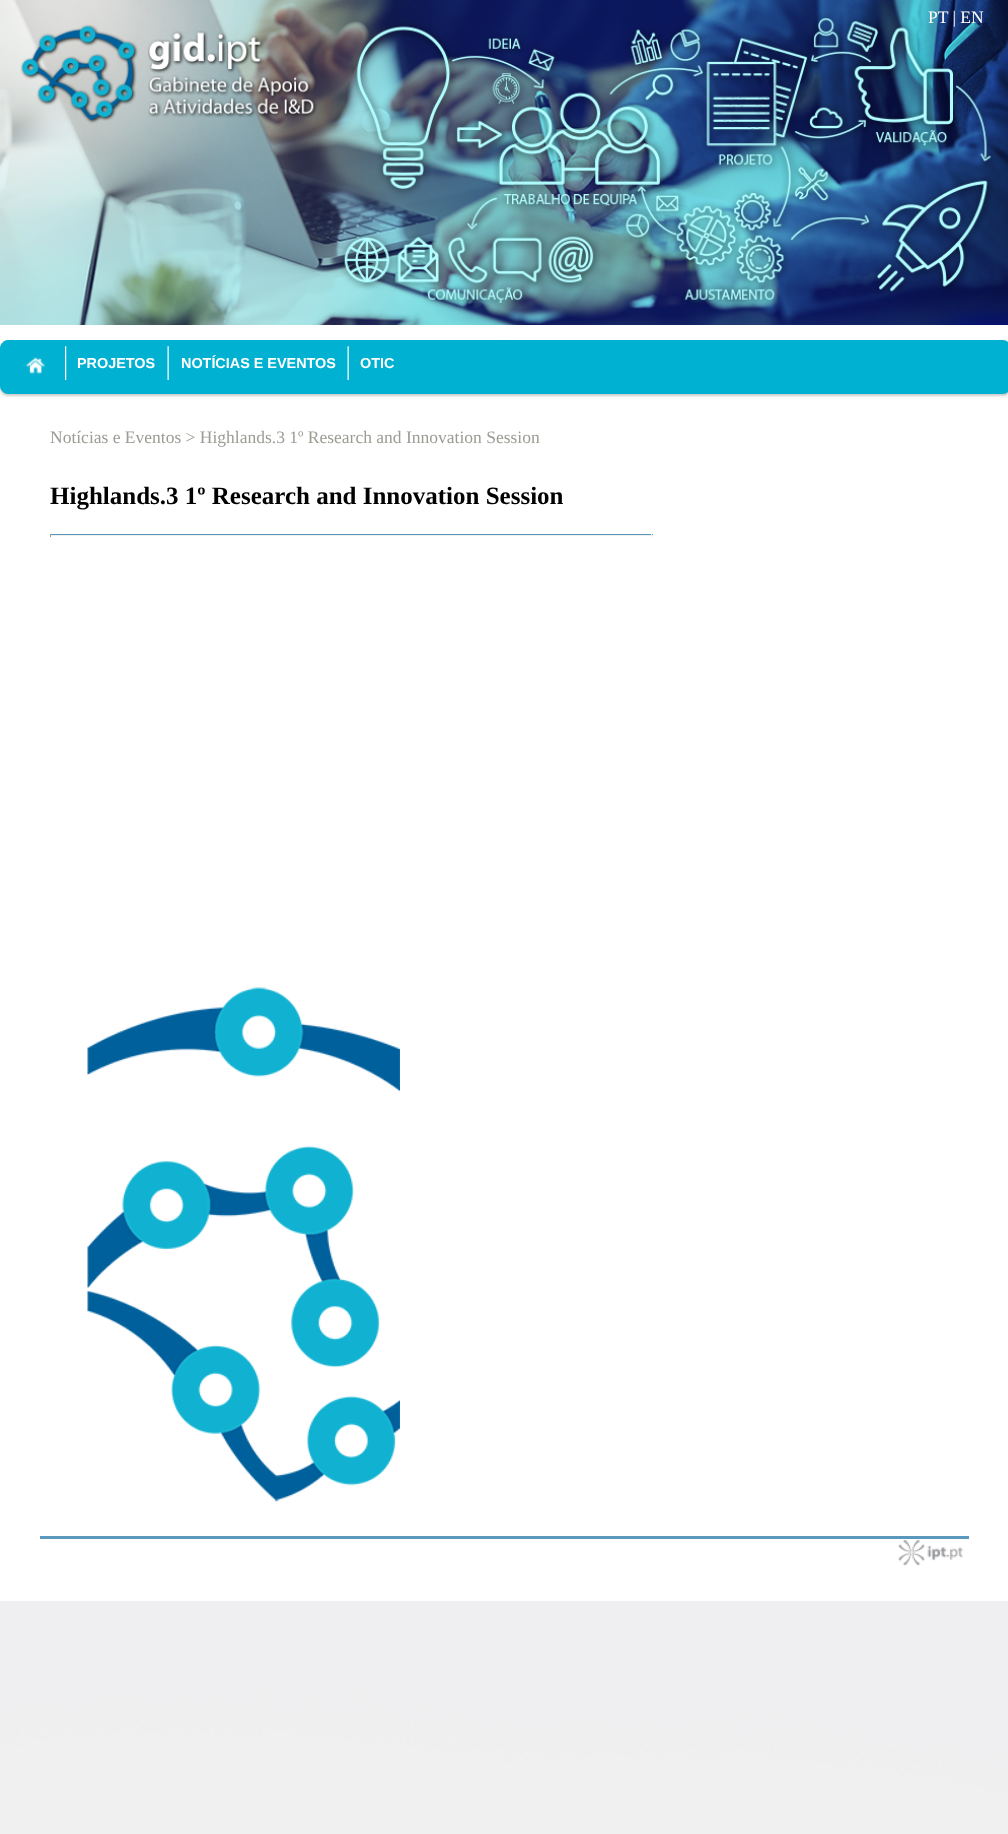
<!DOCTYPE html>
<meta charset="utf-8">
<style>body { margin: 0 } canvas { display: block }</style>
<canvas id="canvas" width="1008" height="1834"></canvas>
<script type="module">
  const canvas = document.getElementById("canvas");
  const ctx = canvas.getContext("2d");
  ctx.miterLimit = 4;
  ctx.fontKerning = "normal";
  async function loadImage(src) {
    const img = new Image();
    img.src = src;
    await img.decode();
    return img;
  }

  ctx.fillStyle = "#ffffff";
  ctx.fillRect(0, 0, 1008, 1834);
  ctx.drawImage(await loadImage("img1.png"), 0, 1601, 1008, 233);
  ctx.drawImage(await loadImage("img2.png"), 0, 0, 1008, 325);
  ctx.font = "17.5px Liberation Serif";
  ctx.fillText("PT | EN", 928, 23);
  ctx.fillStyle = "#cccccc";
  ctx.filter = "blur(1px)";
  ctx.beginPath();
  ctx.roundRect(0, 343, 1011, 53, 8);
  ctx.fill();
  ctx.filter = "none";
  ctx.fillStyle = "#00b1d1";
  ctx.beginPath();
  ctx.roundRect(0.5, 340.5, 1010, 53, 7.5);
  ctx.fill();
  ctx.strokeStyle = "#00b1d1";
  ctx.stroke();
  ctx.drawImage(await loadImage("img3.png"), 26, 357, 19, 17);
  ctx.drawImage(await loadImage("img4.png"), 65, 346, 2, 34);
  ctx.font = "bold 14.4px Liberation Sans";
  ctx.fillStyle = "#ffffff";
  ctx.fillText("PROJETOS", 77, 368);
  ctx.drawImage(await loadImage("img5.png"), 167, 346, 2, 34);
  ctx.fillText("NOTÍCIAS E EVENTOS", 181, 368);
  ctx.drawImage(await loadImage("img5.png"), 347, 346, 2, 34);
  ctx.fillText("OTIC", 360, 368);
  ctx.font = "17.5px Liberation Serif";
  ctx.fillStyle = "#9c9c95";
  ctx.fillText("Notícias e Eventos > Highlands.3 1º Research and Innovation Session", 50, 443);
  ctx.font = "bold 25px Liberation Serif";
  ctx.fillStyle = "#000000";
  ctx.fillText("Highlands.3 1º Research and Innovation Session", 50, 504);
  ctx.fillStyle = "#5b98bd";
  ctx.fillRect(50, 534, 603, 1);
  ctx.fillStyle = "#eeeeee";
  ctx.fillRect(651, 534, 1, 3);
  ctx.fillRect(50, 535, 603, 1);
  ctx.fillStyle = "#9f9f9f";
  ctx.fillRect(50, 534, 1, 3);
  ctx.drawImage(await loadImage("img6.png"), 87, 987, 313, 515);
  ctx.fillStyle = "#5b98bd";
  ctx.fillRect(40, 1536, 929, 3);
  ctx.drawImage(await loadImage("img7.png"), 898, 1539, 65, 27);
</script>
